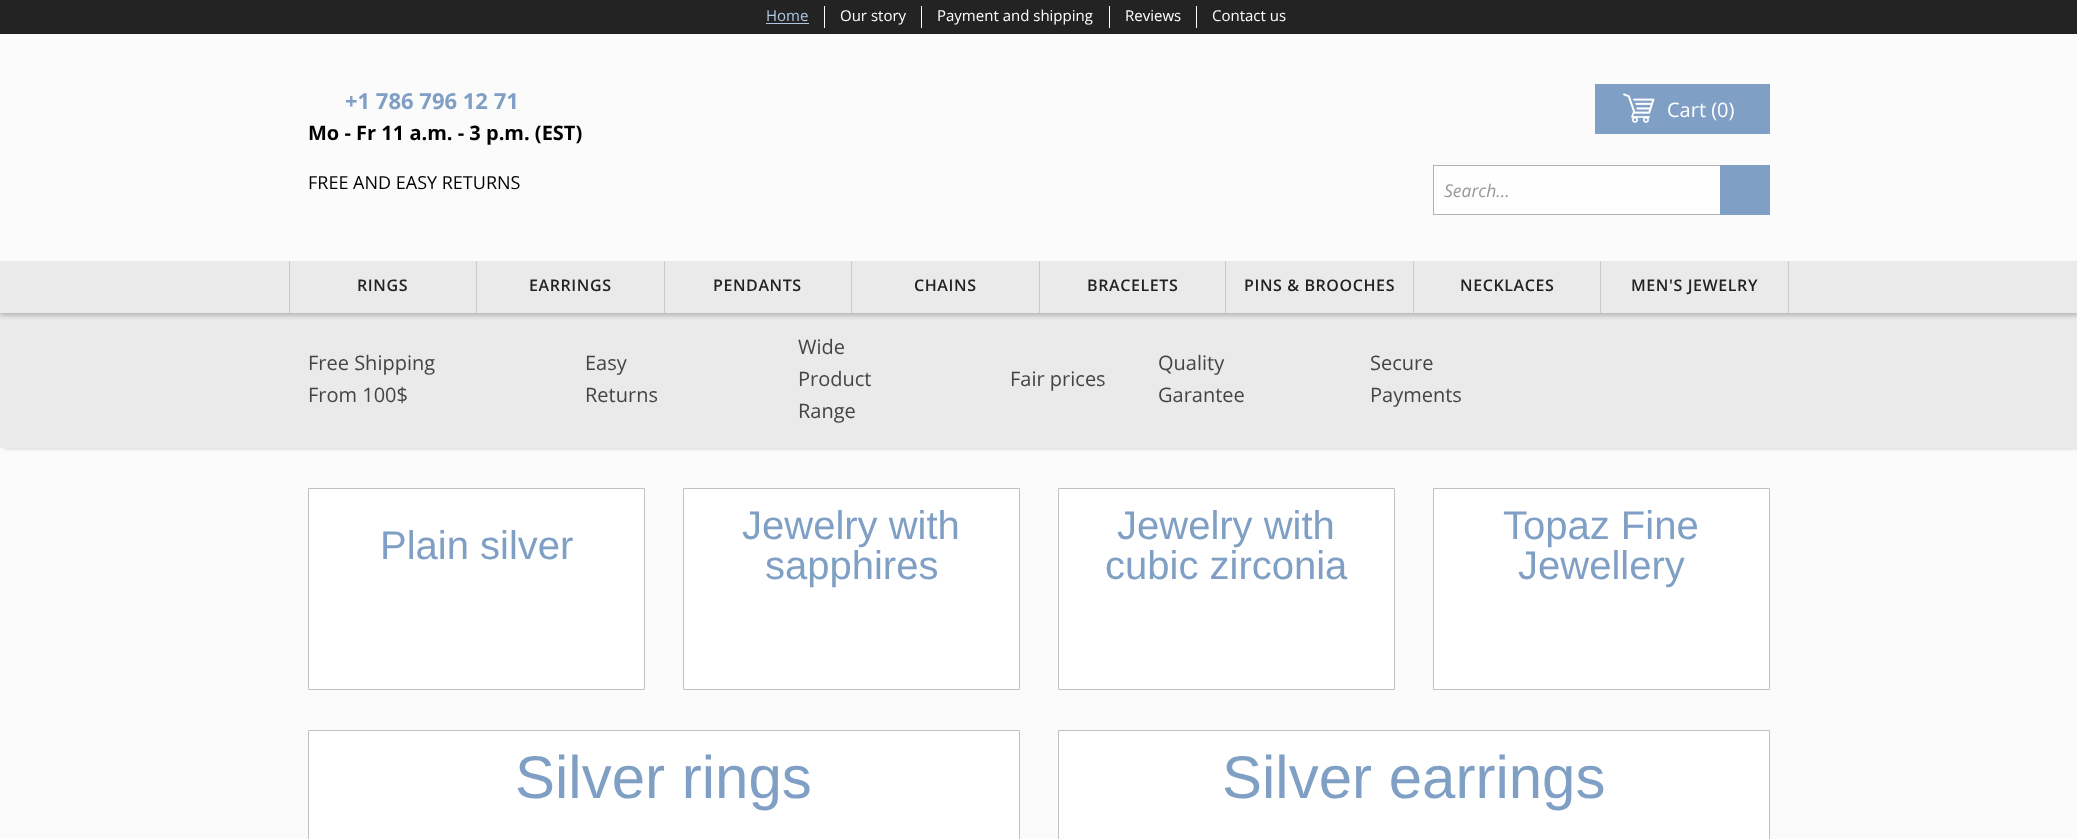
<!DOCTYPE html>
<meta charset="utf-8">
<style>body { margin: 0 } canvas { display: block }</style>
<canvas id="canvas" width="2077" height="839"></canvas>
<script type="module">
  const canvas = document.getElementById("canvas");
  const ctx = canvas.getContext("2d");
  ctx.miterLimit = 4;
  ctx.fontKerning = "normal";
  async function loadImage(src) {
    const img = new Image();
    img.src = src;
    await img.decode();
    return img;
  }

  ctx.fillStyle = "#fbfbfb";
  ctx.fillRect(0, 0, 2077, 839);
  ctx.fillStyle = "#232323";
  ctx.fillRect(0, 0, 2077, 34);
  ctx.fillStyle = "#ffffff";
  ctx.fillRect(824, 6, 1, 22);
  ctx.font = "15px Open Sans";
  ctx.fillStyle = "#afc7e1";
  ctx.fillText("Home", 766, 21);
  ctx.fillRect(766, 23, 43, 1);
  ctx.fillStyle = "#ffffff";
  ctx.fillRect(921, 6, 1, 22);
  ctx.fillText("Our story", 840, 21);
  ctx.fillRect(1109, 6, 1, 22);
  ctx.fillText("Payment and shipping", 937, 21);
  ctx.fillRect(1196, 6, 1, 22);
  ctx.fillText("Reviews", 1125, 21);
  ctx.fillText("Contact us", 1212, 21);
  ctx.font = "bold 22px Open Sans";
  ctx.fillStyle = "#7f9fc4";
  ctx.fillText("+1 786 796 12 71", 345, 109);
  ctx.font = "bold 20px Open Sans";
  ctx.fillStyle = "#000000";
  ctx.fillText("Mo - Fr 11 a.m. - 3 p.m. (EST)", 308, 140);
  ctx.font = "18px Open Sans";
  ctx.fillText("FREE AND EASY RETURNS", 308, 189);
  ctx.fillStyle = "#7f9fc4";
  ctx.fillRect(1595, 84, 175, 50);
  ctx.drawImage(await loadImage("img1.png"), 1623, 93, 32, 30);
  ctx.font = "20px Open Sans";
  ctx.fillStyle = "#ffffff";
  ctx.fillText("Cart (0)", 1667, 117);
  ctx.fillStyle = "#fefefe";
  ctx.fillRect(1434, 166, 286, 48);
  ctx.fillStyle = "#b2b2b2";
  ctx.fillRect(1433, 165, 287, 1);
  ctx.fillRect(1433, 214, 287, 1);
  ctx.fillRect(1433, 165, 1, 50);
  ctx.font = "italic 17.5px Open Sans";
  ctx.fillStyle = "#999898";
  ctx.fillText("Search...", 1444, 197);
  ctx.fillStyle = "#7f9fc4";
  ctx.fillRect(1720, 165, 50, 50);
  ctx.fillStyle = "rgba(0, 0, 0, 0.2)";
  ctx.filter = "blur(2px)";
  ctx.beginPath();
  ctx.rect(4, 313, 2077, 135);
  ctx.fill();
  ctx.filter = "none";
  ctx.fillStyle = "#eaeaea";
  ctx.fillRect(0, 313, 2077, 135);
  ctx.fillStyle = "rgba(0, 0, 0, 0.2)";
  ctx.filter = "blur(2px)";
  ctx.beginPath();
  ctx.rect(0, 265, 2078, 51);
  ctx.fill();
  ctx.filter = "none";
  ctx.fillStyle = "#eaeaea";
  ctx.fillRect(0, 261, 2077, 52);
  ctx.fillStyle = "#cacaca";
  ctx.fillRect(289, 261, 1, 52);
  ctx.letterSpacing = "0.6px";
  ctx.font = "600 16px Open Sans";
  ctx.fillStyle = "#222222";
  ctx.fillText("RINGS", 357, 291);
  ctx.fillStyle = "#cacaca";
  ctx.fillRect(476, 261, 1, 52);
  ctx.fillStyle = "#222222";
  ctx.fillText("EARRINGS", 529, 291);
  ctx.fillStyle = "#cacaca";
  ctx.fillRect(664, 261, 1, 52);
  ctx.fillStyle = "#222222";
  ctx.fillText("PENDANTS", 713, 291);
  ctx.fillStyle = "#cacaca";
  ctx.fillRect(851, 261, 1, 52);
  ctx.fillStyle = "#222222";
  ctx.fillText("CHAINS", 914, 291);
  ctx.fillStyle = "#cacaca";
  ctx.fillRect(1039, 261, 1, 52);
  ctx.fillStyle = "#222222";
  ctx.fillText("BRACELETS", 1087, 291);
  ctx.fillStyle = "#cacaca";
  ctx.fillRect(1225, 261, 1, 52);
  ctx.fillStyle = "#222222";
  ctx.fillText("PINS & BROOCHES", 1244, 291);
  ctx.fillStyle = "#cacaca";
  ctx.fillRect(1413, 261, 1, 52);
  ctx.fillStyle = "#222222";
  ctx.fillText("NECKLACES", 1460, 291);
  ctx.fillStyle = "#cacaca";
  ctx.fillRect(1788, 261, 1, 52);
  ctx.fillRect(1600, 261, 1, 52);
  ctx.fillStyle = "#222222";
  ctx.fillText("MEN'S JEWELRY", 1631, 291);
  ctx.letterSpacing = "0px";
  ctx.font = "20px Open Sans";
  ctx.fillStyle = "#444444";
  ctx.fillText("Free Shipping", 308, 370);
  ctx.fillText("From 100$", 308, 402);
  ctx.fillText("Easy", 585, 370);
  ctx.fillText("Returns", 585, 402);
  ctx.fillText("Wide", 798, 354);
  ctx.fillText("Product", 798, 386);
  ctx.fillText("Range", 798, 418);
  ctx.fillText("Fair prices", 1010, 386);
  ctx.fillText("Quality", 1158, 370);
  ctx.fillText("Garantee", 1158, 402);
  ctx.fillText("Secure", 1370, 370);
  ctx.fillText("Payments", 1370, 402);
  ctx.fillStyle = "#ffffff";
  ctx.beginPath();
  ctx.rect(308.5, 488.5, 336, 201);
  ctx.fill();
  ctx.strokeStyle = "#c2c0c0";
  ctx.stroke();
  ctx.font = "40px Liberation Sans";
  ctx.fillStyle = "#7f9fc4";
  ctx.fillText("Plain silver", 380, 559);
  ctx.fillStyle = "#ffffff";
  ctx.beginPath();
  ctx.rect(683.5, 488.5, 336, 201);
  ctx.fill();
  ctx.stroke();
  ctx.fillStyle = "#7f9fc4";
  ctx.fillText("Jewelry with", 742, 539);
  ctx.fillText("sapphires", 765, 579);
  ctx.fillStyle = "#ffffff";
  ctx.beginPath();
  ctx.rect(1058.5, 488.5, 336, 201);
  ctx.fill();
  ctx.stroke();
  ctx.fillStyle = "#7f9fc4";
  ctx.fillText("Jewelry with", 1117, 539);
  ctx.fillText("cubic zirconia", 1105, 579);
  ctx.fillStyle = "#ffffff";
  ctx.beginPath();
  ctx.rect(1433.5, 488.5, 336, 201);
  ctx.fill();
  ctx.stroke();
  ctx.fillStyle = "#7f9fc4";
  ctx.fillText("Topaz Fine", 1503, 539);
  ctx.fillText("Jewellery", 1518, 579);
  ctx.fillStyle = "#ffffff";
  ctx.beginPath();
  ctx.rect(308.5, 730.5, 711, 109);
  ctx.fill();
  ctx.stroke();
  ctx.font = "60px Liberation Sans";
  ctx.fillStyle = "#7f9fc4";
  ctx.fillText("Silver rings", 515, 798);
  ctx.fillStyle = "#ffffff";
  ctx.beginPath();
  ctx.rect(1058.5, 730.5, 711, 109);
  ctx.fill();
  ctx.stroke();
  ctx.fillStyle = "#7f9fc4";
  ctx.fillText("Silver earrings", 1222, 798);
</script>
